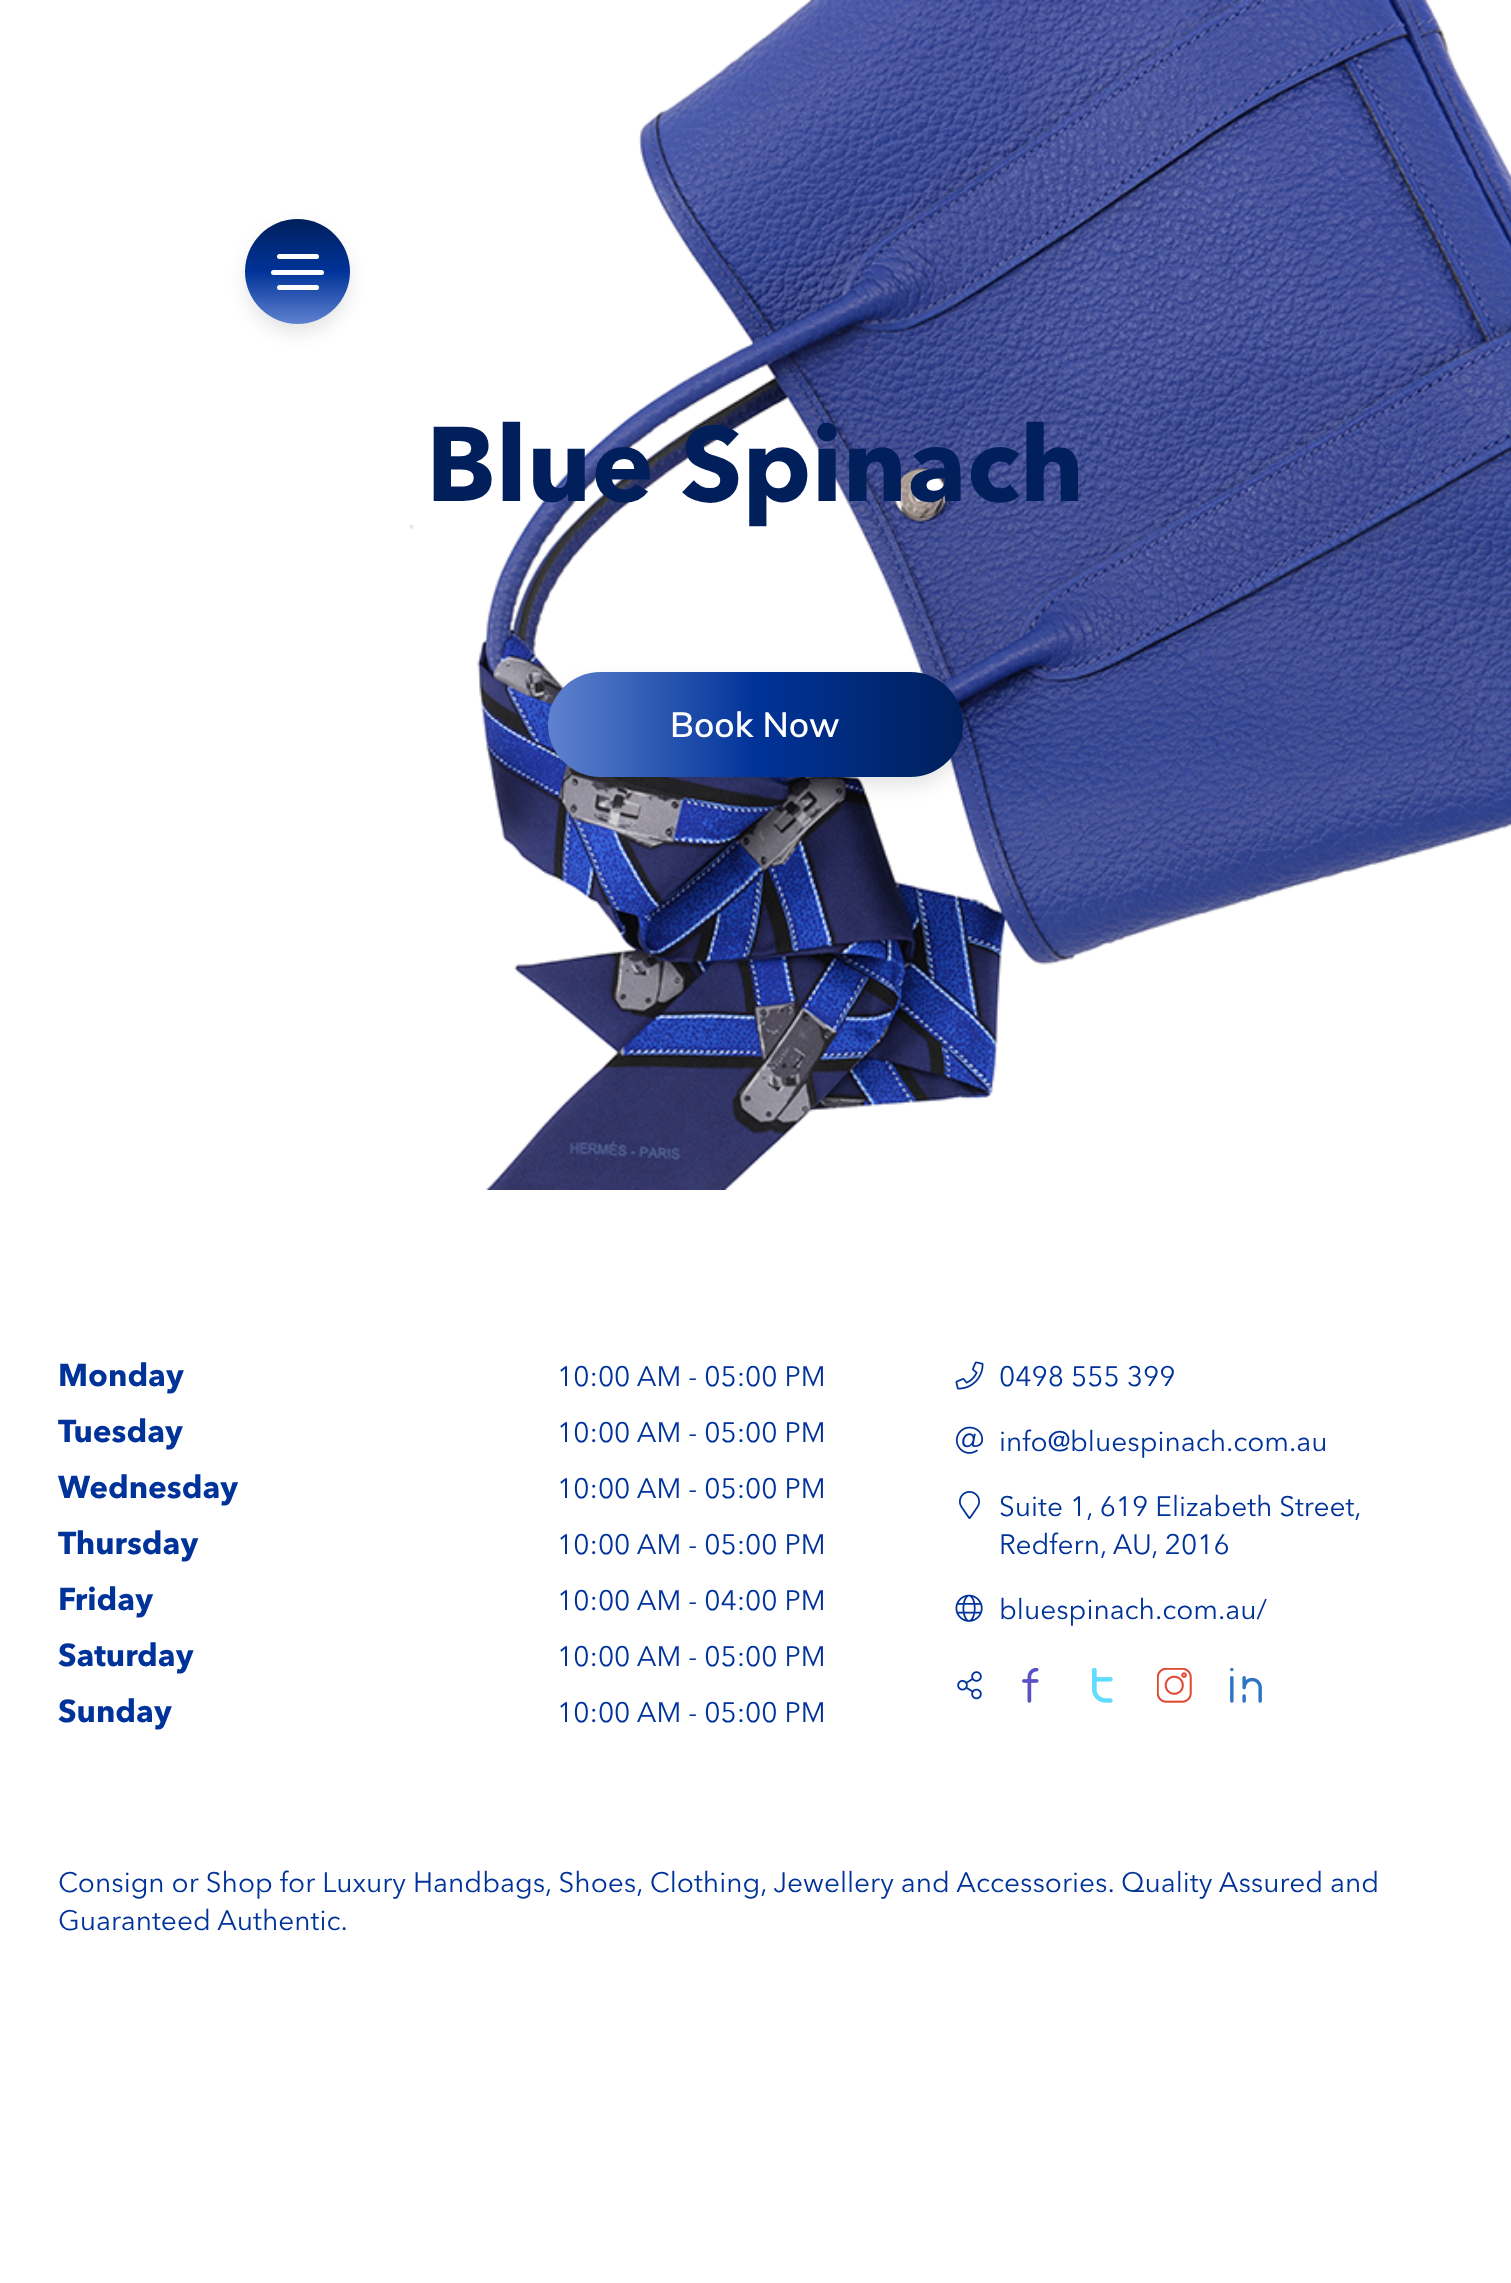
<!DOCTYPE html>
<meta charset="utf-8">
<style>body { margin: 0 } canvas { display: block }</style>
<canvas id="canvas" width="1511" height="2283"></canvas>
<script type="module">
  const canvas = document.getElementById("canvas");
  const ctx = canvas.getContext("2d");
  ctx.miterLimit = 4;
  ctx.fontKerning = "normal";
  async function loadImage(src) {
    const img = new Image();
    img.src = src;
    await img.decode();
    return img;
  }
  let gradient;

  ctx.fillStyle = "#ffffff";
  ctx.fillRect(0, 0, 1511, 2283);
  ctx.fillStyle = "rgba(0, 0, 0, 0.1)";
  ctx.filter = "blur(9px)";
  ctx.beginPath();
  ctx.roundRect(245, 228, 105, 105, 52.5);
  ctx.fill();
  ctx.filter = "none";
  gradient = ctx.createLinearGradient(298, 324, 298, 219);
  gradient.addColorStop(0, "#5f82cf");
  gradient.addColorStop(0.5, "#003399");
  gradient.addColorStop(1, "#001f5b");
  ctx.fillStyle = gradient;
  ctx.beginPath();
  ctx.arc(297.5, 271.5, 52.5, 0, Math.PI * 2);
  ctx.fill();
  ctx.fillStyle = "#ffffff";
  ctx.beginPath();
  ctx.roundRect(271, 270, 53, 5, 2.5);
  ctx.fill();
  ctx.beginPath();
  ctx.roundRect(277, 254, 42, 5, 2.5);
  ctx.fill();
  ctx.beginPath();
  ctx.roundRect(277, 285, 42, 5, 2.5);
  ctx.fill();
  ctx.drawImage(await loadImage("img1.png"), 409, 0, 1102, 1190);
  ctx.font = "bold 105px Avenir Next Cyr";
  ctx.fillStyle = "#001f5b";
  ctx.fillText("Blue Spinach", 426, 501);
  ctx.fillStyle = "rgba(0, 0, 0, 0.1)";
  ctx.filter = "blur(9px)";
  ctx.beginPath();
  ctx.roundRect(548, 681, 415, 105, 52.5);
  ctx.fill();
  ctx.filter = "none";
  gradient = ctx.createLinearGradient(548, 725, 963, 725);
  gradient.addColorStop(0, "#5f82cf");
  gradient.addColorStop(0.5, "#003399");
  gradient.addColorStop(1, "#001f5b");
  ctx.fillStyle = gradient;
  ctx.beginPath();
  ctx.roundRect(548, 672, 415, 105, 52.5);
  ctx.fill();
  ctx.font = "600 35px Mulish";
  ctx.fillStyle = "#ffffff";
  ctx.fillText("Book Now", 670, 737);
  ctx.font = "bold 31.5px Avenir Next Cyr";
  ctx.fillStyle = "#003399";
  ctx.fillText("Monday", 58, 1386);
  ctx.font = "28px Avenir Next Cyr";
  ctx.fillText("10:00 AM - 05:00 PM", 557, 1386);
  ctx.font = "bold 31.5px Avenir Next Cyr";
  ctx.fillText("Tuesday", 58, 1442);
  ctx.font = "28px Avenir Next Cyr";
  ctx.fillText("10:00 AM - 05:00 PM", 557, 1442);
  ctx.font = "bold 31.5px Avenir Next Cyr";
  ctx.fillText("Wednesday", 58, 1498);
  ctx.font = "28px Avenir Next Cyr";
  ctx.fillText("10:00 AM - 05:00 PM", 557, 1498);
  ctx.font = "bold 31.5px Avenir Next Cyr";
  ctx.fillText("Thursday", 58, 1554);
  ctx.font = "28px Avenir Next Cyr";
  ctx.fillText("10:00 AM - 05:00 PM", 557, 1554);
  ctx.font = "bold 31.5px Avenir Next Cyr";
  ctx.fillText("Friday", 58, 1610);
  ctx.font = "28px Avenir Next Cyr";
  ctx.fillText("10:00 AM - 04:00 PM", 557, 1610);
  ctx.font = "bold 31.5px Avenir Next Cyr";
  ctx.fillText("Saturday", 58, 1666);
  ctx.font = "28px Avenir Next Cyr";
  ctx.fillText("10:00 AM - 05:00 PM", 557, 1666);
  ctx.font = "bold 31.5px Avenir Next Cyr";
  ctx.fillText("Sunday", 58, 1722);
  ctx.font = "28px Avenir Next Cyr";
  ctx.fillText("10:00 AM - 05:00 PM", 557, 1722);
  ctx.drawImage(await loadImage("img2.png"), 955, 1361, 29, 29);
  ctx.fillText("0498 555 399", 999, 1386);
  ctx.drawImage(await loadImage("img3.png"), 955, 1426, 29, 28);
  ctx.fillText("info@bluespinach.com.au", 999, 1451);
  ctx.drawImage(await loadImage("img4.png"), 959, 1491, 21, 28);
  ctx.fillText("Suite 1, 619 Elizabeth Street,", 999, 1516);
  ctx.fillText("Redfern, AU, 2016", 999, 1554);
  ctx.drawImage(await loadImage("img5.png"), 955, 1594, 28, 28);
  ctx.fillText("bluespinach.com.au/", 999, 1619);
  ctx.drawImage(await loadImage("img6.png"), 957, 1671, 25, 29);
  ctx.drawImage(await loadImage("img7.png"), 1022, 1668, 17, 35);
  ctx.drawImage(await loadImage("img8.png"), 1092, 1668, 21, 35);
  ctx.drawImage(await loadImage("img9.png"), 1157, 1668, 35, 35);
  ctx.drawImage(await loadImage("img10.png"), 1230, 1668, 32, 35);
  ctx.fillText("Consign or Shop for Luxury Handbags, Shoes, Clothing, Jewellery and Accessories. Quality Assured and", 58, 1892);
  ctx.fillText("Guaranteed Authentic.", 58, 1930);
</script>
